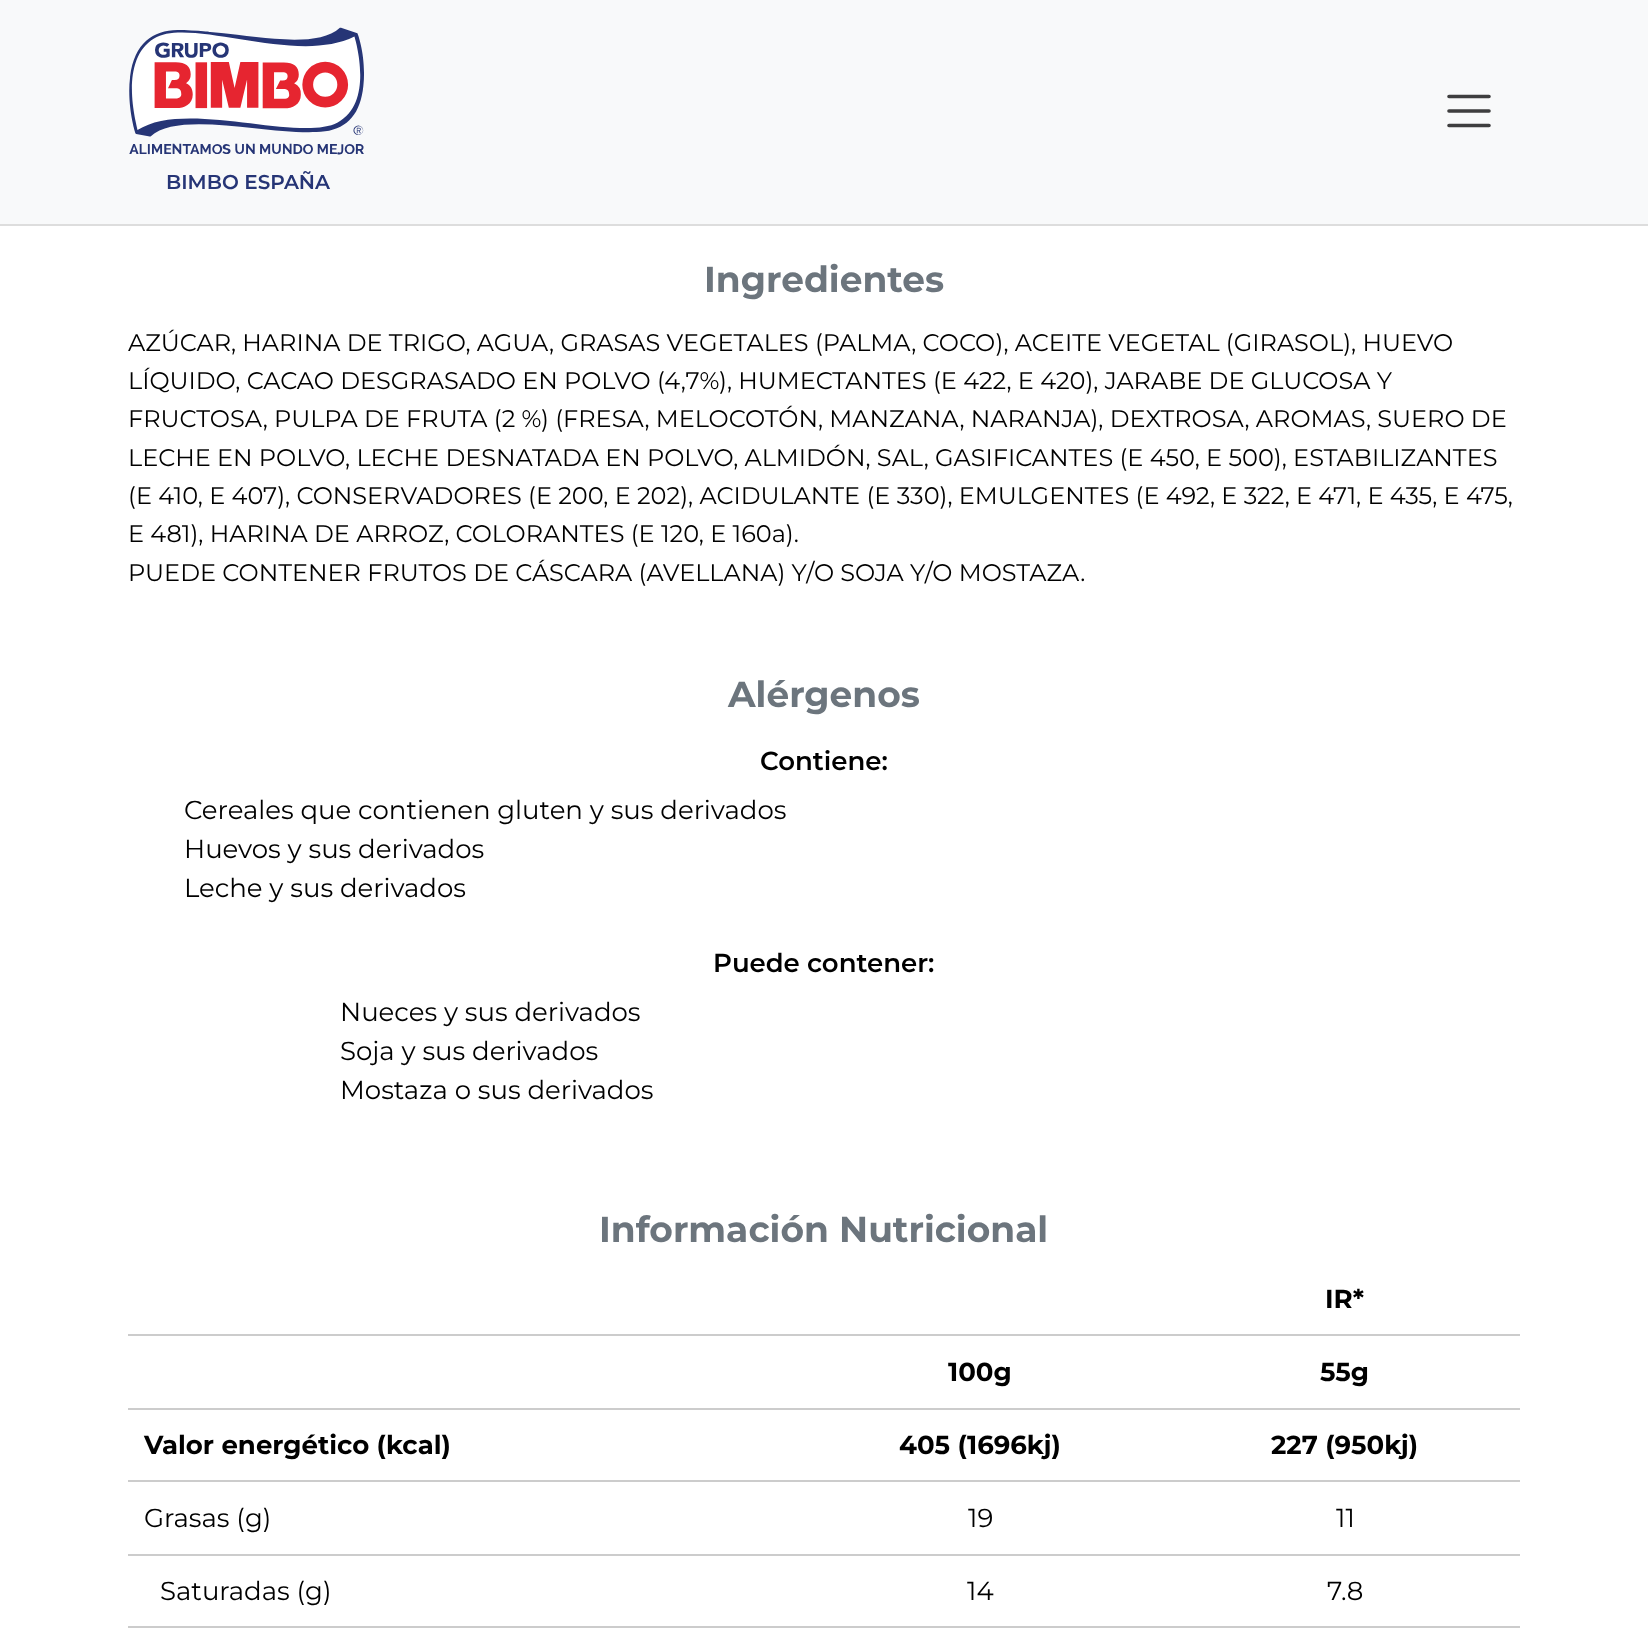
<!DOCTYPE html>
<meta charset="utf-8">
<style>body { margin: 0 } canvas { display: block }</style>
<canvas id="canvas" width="1648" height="1648"></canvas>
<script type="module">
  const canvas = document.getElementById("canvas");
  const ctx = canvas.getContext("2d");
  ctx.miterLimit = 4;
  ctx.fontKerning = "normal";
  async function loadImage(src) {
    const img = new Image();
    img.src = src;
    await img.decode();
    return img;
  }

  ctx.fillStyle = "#ffffff";
  ctx.fillRect(0, 0, 1648, 1648);
  ctx.fillStyle = "#f8f9fa";
  ctx.fillRect(0, 0, 1648, 224);
  ctx.fillStyle = "#dddddd";
  ctx.fillRect(0, 224, 1648, 2);
  ctx.beginPath();
  ctx.moveTo(1449, 96.5);
  ctx.lineTo(1489, 96.5);
  ctx.moveTo(1449, 111);
  ctx.lineTo(1489, 111);
  ctx.moveTo(1449, 125.5);
  ctx.lineTo(1489, 125.5);
  ctx.strokeStyle = "#3e3e3f";
  ctx.lineWidth = 3.6;
  ctx.lineCap = "round";
  ctx.stroke();
  ctx.drawImage(await loadImage("img1.png"), 129, 27, 235, 128);
  ctx.font = "600 20px Montserrat";
  ctx.fillStyle = "#263576";
  ctx.fillText("BIMBO ESPAÑA", 166, 189);
  ctx.font = "100 36px Montserrat";
  ctx.fillStyle = "#6c757d";
  ctx.fillText("Ingredientes", 704, 292);
  ctx.font = "100 24px 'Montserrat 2'";
  ctx.fillStyle = "#000000";
  ctx.fillText("AZÚCAR, HARINA DE TRIGO, AGUA, GRASAS VEGETALES (PALMA, COCO), ACEITE VEGETAL (GIRASOL), HUEVO", 128, 351);
  ctx.fillText("LÍQUIDO, CACAO DESGRASADO EN POLVO (4,7%), HUMECTANTES (E 422, E 420), JARABE DE GLUCOSA Y", 128, 389);
  ctx.fillText("FRUCTOSA, PULPA DE FRUTA (2 %) (FRESA, MELOCOTÓN, MANZANA, NARANJA), DEXTROSA, AROMAS, SUERO DE", 128, 427);
  ctx.fillText("LECHE EN POLVO, LECHE DESNATADA EN POLVO, ALMIDÓN, SAL, GASIFICANTES (E 450, E 500), ESTABILIZANTES", 128, 466);
  ctx.fillText("(E 410, E 407), CONSERVADORES (E 200, E 202), ACIDULANTE (E 330), EMULGENTES (E 492, E 322, E 471, E 435, E 475,", 128, 504);
  ctx.fillText("E 481), HARINA DE ARROZ, COLORANTES (E 120, E 160a).", 128, 542);
  ctx.fillText("PUEDE CONTENER FRUTOS DE CÁSCARA (AVELLANA) Y/O SOJA Y/O MOSTAZA.", 128, 581);
  ctx.font = "100 36px Montserrat";
  ctx.fillStyle = "#6c757d";
  ctx.fillText("Alérgenos", 728, 707);
  ctx.font = "600 26px Montserrat";
  ctx.fillStyle = "#000000";
  ctx.fillText("Contiene:", 760, 770);
  ctx.font = "100 26px 'Montserrat 2'";
  ctx.fillText("Cereales que contienen gluten y sus derivados", 184, 819);
  ctx.fillText("Huevos y sus derivados", 184, 858);
  ctx.fillText("Leche y sus derivados", 184, 897);
  ctx.font = "600 26px Montserrat";
  ctx.fillText("Puede contener:", 713, 972);
  ctx.font = "100 26px 'Montserrat 2'";
  ctx.fillText("Nueces y sus derivados", 340, 1021);
  ctx.fillText("Soja y sus derivados", 340, 1060);
  ctx.fillText("Mostaza o sus derivados", 340, 1099);
  ctx.font = "100 36px Montserrat";
  ctx.fillStyle = "#6c757d";
  ctx.fillText("Información Nutricional", 599, 1242);
  ctx.fillStyle = "#cccccc";
  ctx.fillRect(128, 1334, 1392, 2);
  ctx.font = "100 26px Montserrat";
  ctx.fillStyle = "#000000";
  ctx.fillText("IR*", 1325, 1308);
  ctx.fillText("100g", 948, 1381);
  ctx.fillStyle = "#cccccc";
  ctx.fillRect(128, 1408, 1392, 2);
  ctx.fillStyle = "#000000";
  ctx.fillText("55g", 1320, 1381);
  ctx.fillText("Valor energético (kcal)", 144, 1454);
  ctx.fillText("405 (1696kj)", 899, 1454);
  ctx.fillStyle = "#cccccc";
  ctx.fillRect(128, 1480, 1392, 2);
  ctx.fillStyle = "#000000";
  ctx.fillText("227 (950kj)", 1271, 1454);
  ctx.font = "100 26px 'Montserrat 2'";
  ctx.fillText("Grasas (g)", 144, 1527);
  ctx.fillText("19", 968, 1527);
  ctx.fillStyle = "#cccccc";
  ctx.fillRect(128, 1554, 1392, 2);
  ctx.fillStyle = "#000000";
  ctx.fillText("11", 1336, 1527);
  ctx.fillText("Saturadas (g)", 160, 1600);
  ctx.fillText("14", 967, 1600);
  ctx.fillStyle = "#cccccc";
  ctx.fillRect(128, 1626, 1392, 2);
  ctx.fillStyle = "#000000";
  ctx.fillText("7.8", 1327, 1600);
</script>
